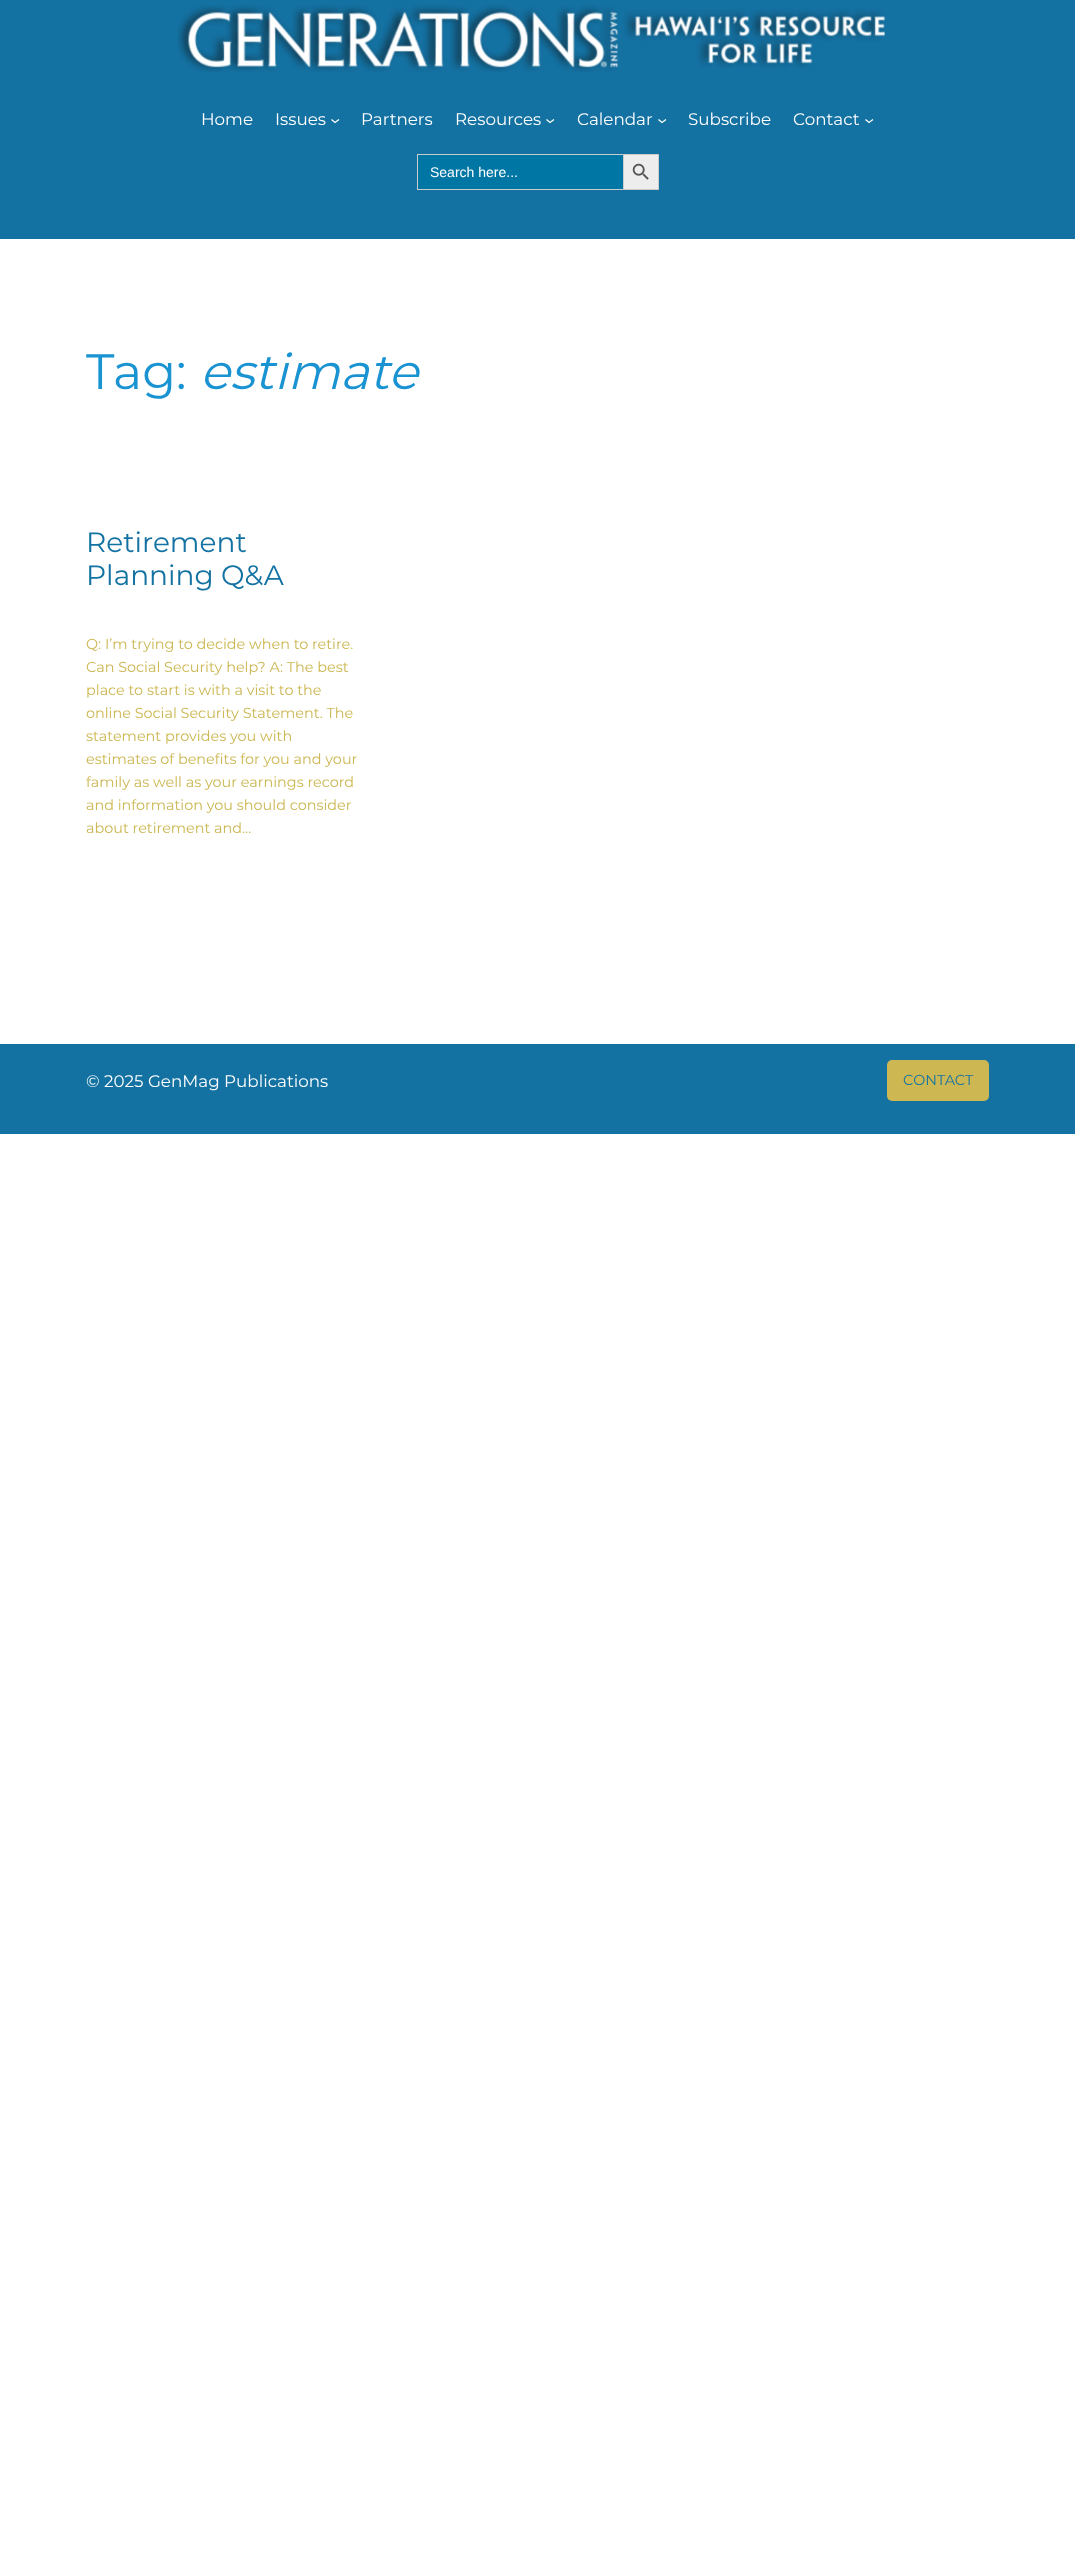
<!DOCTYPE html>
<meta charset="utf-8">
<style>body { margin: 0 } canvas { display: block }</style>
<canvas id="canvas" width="1075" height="2572"></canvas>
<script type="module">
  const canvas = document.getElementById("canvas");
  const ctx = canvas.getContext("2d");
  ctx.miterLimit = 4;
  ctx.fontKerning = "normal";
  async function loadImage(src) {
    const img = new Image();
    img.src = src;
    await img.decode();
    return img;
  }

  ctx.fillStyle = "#ffffff";
  ctx.fillRect(0, 0, 1075, 2572);
  ctx.fillStyle = "#1472a3";
  ctx.fillRect(0, 0, 1075, 239);
  ctx.drawImage(await loadImage("img1.png"), 177, 5, 708, 67);
  ctx.font = "16.75px Montserrat";
  ctx.fillStyle = "#ffffff";
  ctx.fillText("Home", 201, 125);
  ctx.fillText("Issues", 275, 125);
  ctx.beginPath();
  ctx.moveTo(331.5, 119.5);
  ctx.lineTo(335, 122.5);
  ctx.lineTo(339, 119.5);
  ctx.strokeStyle = "#ffffff";
  ctx.lineWidth = 1.3;
  ctx.stroke();
  ctx.fillText("Partners", 361, 125);
  ctx.fillText("Resources", 455, 125);
  ctx.beginPath();
  ctx.moveTo(546.5, 119.5);
  ctx.lineTo(550, 122.5);
  ctx.lineTo(554, 119.5);
  ctx.stroke();
  ctx.fillText("Calendar", 577, 125);
  ctx.beginPath();
  ctx.moveTo(658.5, 119.5);
  ctx.lineTo(662, 122.5);
  ctx.lineTo(666, 119.5);
  ctx.stroke();
  ctx.fillText("Subscribe", 688, 125);
  ctx.fillText("Contact", 793, 125);
  ctx.beginPath();
  ctx.moveTo(865.5, 119.5);
  ctx.lineTo(869, 122.5);
  ctx.lineTo(873, 119.5);
  ctx.stroke();
  ctx.fillStyle = "#0076a4";
  ctx.fillRect(418, 155, 205, 34);
  ctx.fillStyle = "#cccccc";
  ctx.fillRect(417, 154, 206, 1);
  ctx.fillRect(417, 189, 206, 1);
  ctx.fillRect(417, 154, 1, 36);
  ctx.font = "14px Liberation Sans";
  ctx.fillStyle = "#ffffff";
  ctx.fillText("Search here...", 430, 177);
  ctx.fillStyle = "#ededed";
  ctx.beginPath();
  ctx.rect(623.5, 154.5, 35, 35);
  ctx.fill();
  ctx.strokeStyle = "#cccccc";
  ctx.lineWidth = 1;
  ctx.stroke();
  ctx.drawImage(await loadImage("img2.png"), 632, 163, 17, 17);
  ctx.font = "49.5px Montserrat";
  ctx.fillStyle = "#1993d2";
  ctx.fillText("Tag:", 86, 389);
  ctx.font = "italic 49.5px Montserrat";
  ctx.fillText("estimate", 200, 389);
  ctx.font = "28px Montserrat";
  ctx.fillStyle = "#1472a3";
  ctx.fillText("Retirement", 86, 552);
  ctx.fillText("Planning Q&A", 86, 585);
  ctx.font = "14.4px Montserrat";
  ctx.fillStyle = "#ccb752";
  ctx.fillText("Q: I’m trying to decide when to retire.", 86, 649);
  ctx.fillText("Can Social Security help? A: The best", 86, 672);
  ctx.fillText("place to start is with a visit to the", 86, 695);
  ctx.fillText("online Social Security Statement. The", 86, 718);
  ctx.fillText("statement provides you with", 86, 741);
  ctx.fillText("estimates of benefits for you and your", 86, 764);
  ctx.fillText("family as well as your earnings record", 86, 787);
  ctx.fillText("and information you should consider", 86, 810);
  ctx.fillText("about retirement and…", 86, 833);
  ctx.fillStyle = "#1472a3";
  ctx.fillRect(0, 1044, 1075, 90);
  ctx.font = "16.75px Montserrat";
  ctx.fillStyle = "#ffffff";
  ctx.fillText("© 2025 GenMag Publications", 86, 1087);
  ctx.fillStyle = "#ccb752";
  ctx.beginPath();
  ctx.roundRect(887, 1060, 102, 41, 5);
  ctx.fill();
  ctx.font = "14.4px Montserrat";
  ctx.fillStyle = "#1472a3";
  ctx.fillText("CONTACT", 903, 1085);
</script>
